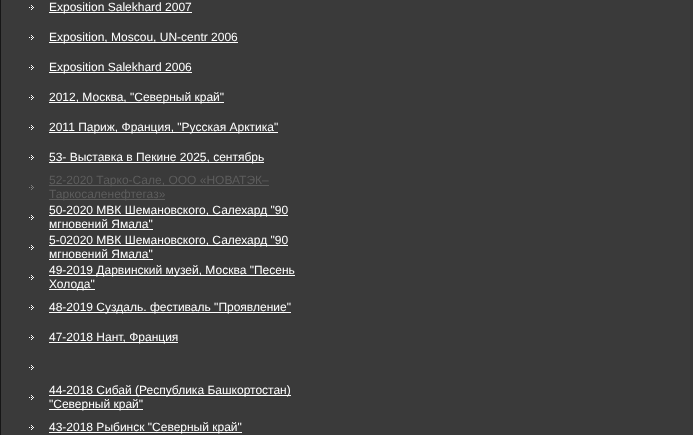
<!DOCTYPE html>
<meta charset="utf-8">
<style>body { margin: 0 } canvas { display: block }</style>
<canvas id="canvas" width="693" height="435"></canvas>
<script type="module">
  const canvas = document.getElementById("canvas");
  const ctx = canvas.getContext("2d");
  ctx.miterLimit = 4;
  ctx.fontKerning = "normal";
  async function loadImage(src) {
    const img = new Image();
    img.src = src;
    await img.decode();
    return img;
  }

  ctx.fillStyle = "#161616";
  ctx.fillRect(0, 0, 693, 435);
  ctx.fillStyle = "#3a3a3a";
  ctx.fillRect(1, 0, 692, 435);
  ctx.drawImage(await loadImage("img1.png"), 29, 5, 5, 5);
  ctx.fillStyle = "#ffffff";
  ctx.fillRect(49, 12, 143, 1);
  ctx.font = "12px Liberation Sans";
  ctx.fillText("Exposition Salekhard 2007", 49, 11);
  ctx.drawImage(await loadImage("img1.png"), 29, 35, 5, 5);
  ctx.fillRect(49, 42, 189, 1);
  ctx.fillText("Exposition, Moscou, UN-centr 2006", 49, 41);
  ctx.drawImage(await loadImage("img1.png"), 29, 65, 5, 5);
  ctx.fillRect(49, 72, 143, 1);
  ctx.fillText("Exposition Salekhard 2006", 49, 71);
  ctx.drawImage(await loadImage("img1.png"), 29, 95, 5, 5);
  ctx.fillRect(49, 102, 175, 1);
  ctx.fillText("2012, Москва, \"Северный край\"", 49, 101);
  ctx.drawImage(await loadImage("img1.png"), 29, 125, 5, 5);
  ctx.fillRect(49, 132, 229, 1);
  ctx.fillText("2011 Париж, Франция, \"Русская Арктика\"", 49, 131);
  ctx.drawImage(await loadImage("img1.png"), 29, 155, 5, 5);
  ctx.fillRect(49, 162, 215, 1);
  ctx.fillText("53- Выставка в Пекине 2025, сентябрь", 49, 161);
  ctx.drawImage(await loadImage("img2.png"), 29, 185, 5, 5);
  ctx.fillStyle = "#5d5d5d";
  ctx.fillRect(49, 185, 220, 1);
  ctx.fillText("52-2020 Тарко-Сале, ООО «НОВАТЭК–", 49, 184);
  ctx.fillRect(49, 199, 116, 1);
  ctx.fillText("Таркосаленефтегаз»", 49, 198);
  ctx.drawImage(await loadImage("img1.png"), 29, 215, 5, 5);
  ctx.fillStyle = "#ffffff";
  ctx.fillRect(49, 215, 239, 1);
  ctx.fillText("50-2020 МВК Шемановского, Салехард \"90", 49, 214);
  ctx.fillText("мгновений Ямала\"", 49, 228);
  ctx.fillRect(49, 229, 104, 1);
  ctx.drawImage(await loadImage("img1.png"), 29, 245, 5, 5);
  ctx.fillRect(49, 245, 239, 1);
  ctx.fillText("5-02020 МВК Шемановского, Салехард \"90", 49, 244);
  ctx.fillText("мгновений Ямала\"", 49, 258);
  ctx.fillRect(49, 259, 104, 1);
  ctx.drawImage(await loadImage("img1.png"), 29, 275, 5, 5);
  ctx.fillRect(49, 275, 246, 1);
  ctx.fillText("49-2019 Дарвинский музей, Москва \"Песень", 49, 274);
  ctx.fillRect(49, 289, 46, 1);
  ctx.fillText("Холода\"", 49, 288);
  ctx.drawImage(await loadImage("img1.png"), 29, 305, 5, 5);
  ctx.fillRect(49, 312, 242, 1);
  ctx.fillText("48-2019 Суздаль. фестиваль \"Проявление\"", 49, 311);
  ctx.drawImage(await loadImage("img1.png"), 29, 335, 5, 5);
  ctx.fillRect(49, 342, 129, 1);
  ctx.fillText("47-2018 Нант, Франция", 49, 341);
  ctx.drawImage(await loadImage("img1.png"), 29, 365, 5, 5);
  ctx.drawImage(await loadImage("img1.png"), 29, 395, 5, 5);
  ctx.fillRect(49, 395, 242, 1);
  ctx.fillText("44-2018 Сибай (Республика Башкортостан)", 49, 394);
  ctx.fillRect(49, 409, 94, 1);
  ctx.fillText("\"Северный край\"", 49, 408);
  ctx.drawImage(await loadImage("img1.png"), 29, 425, 5, 5);
  ctx.fillRect(49, 432, 193, 1);
  ctx.fillText("43-2018 Рыбинск \"Северный край\"", 49, 431);
</script>
